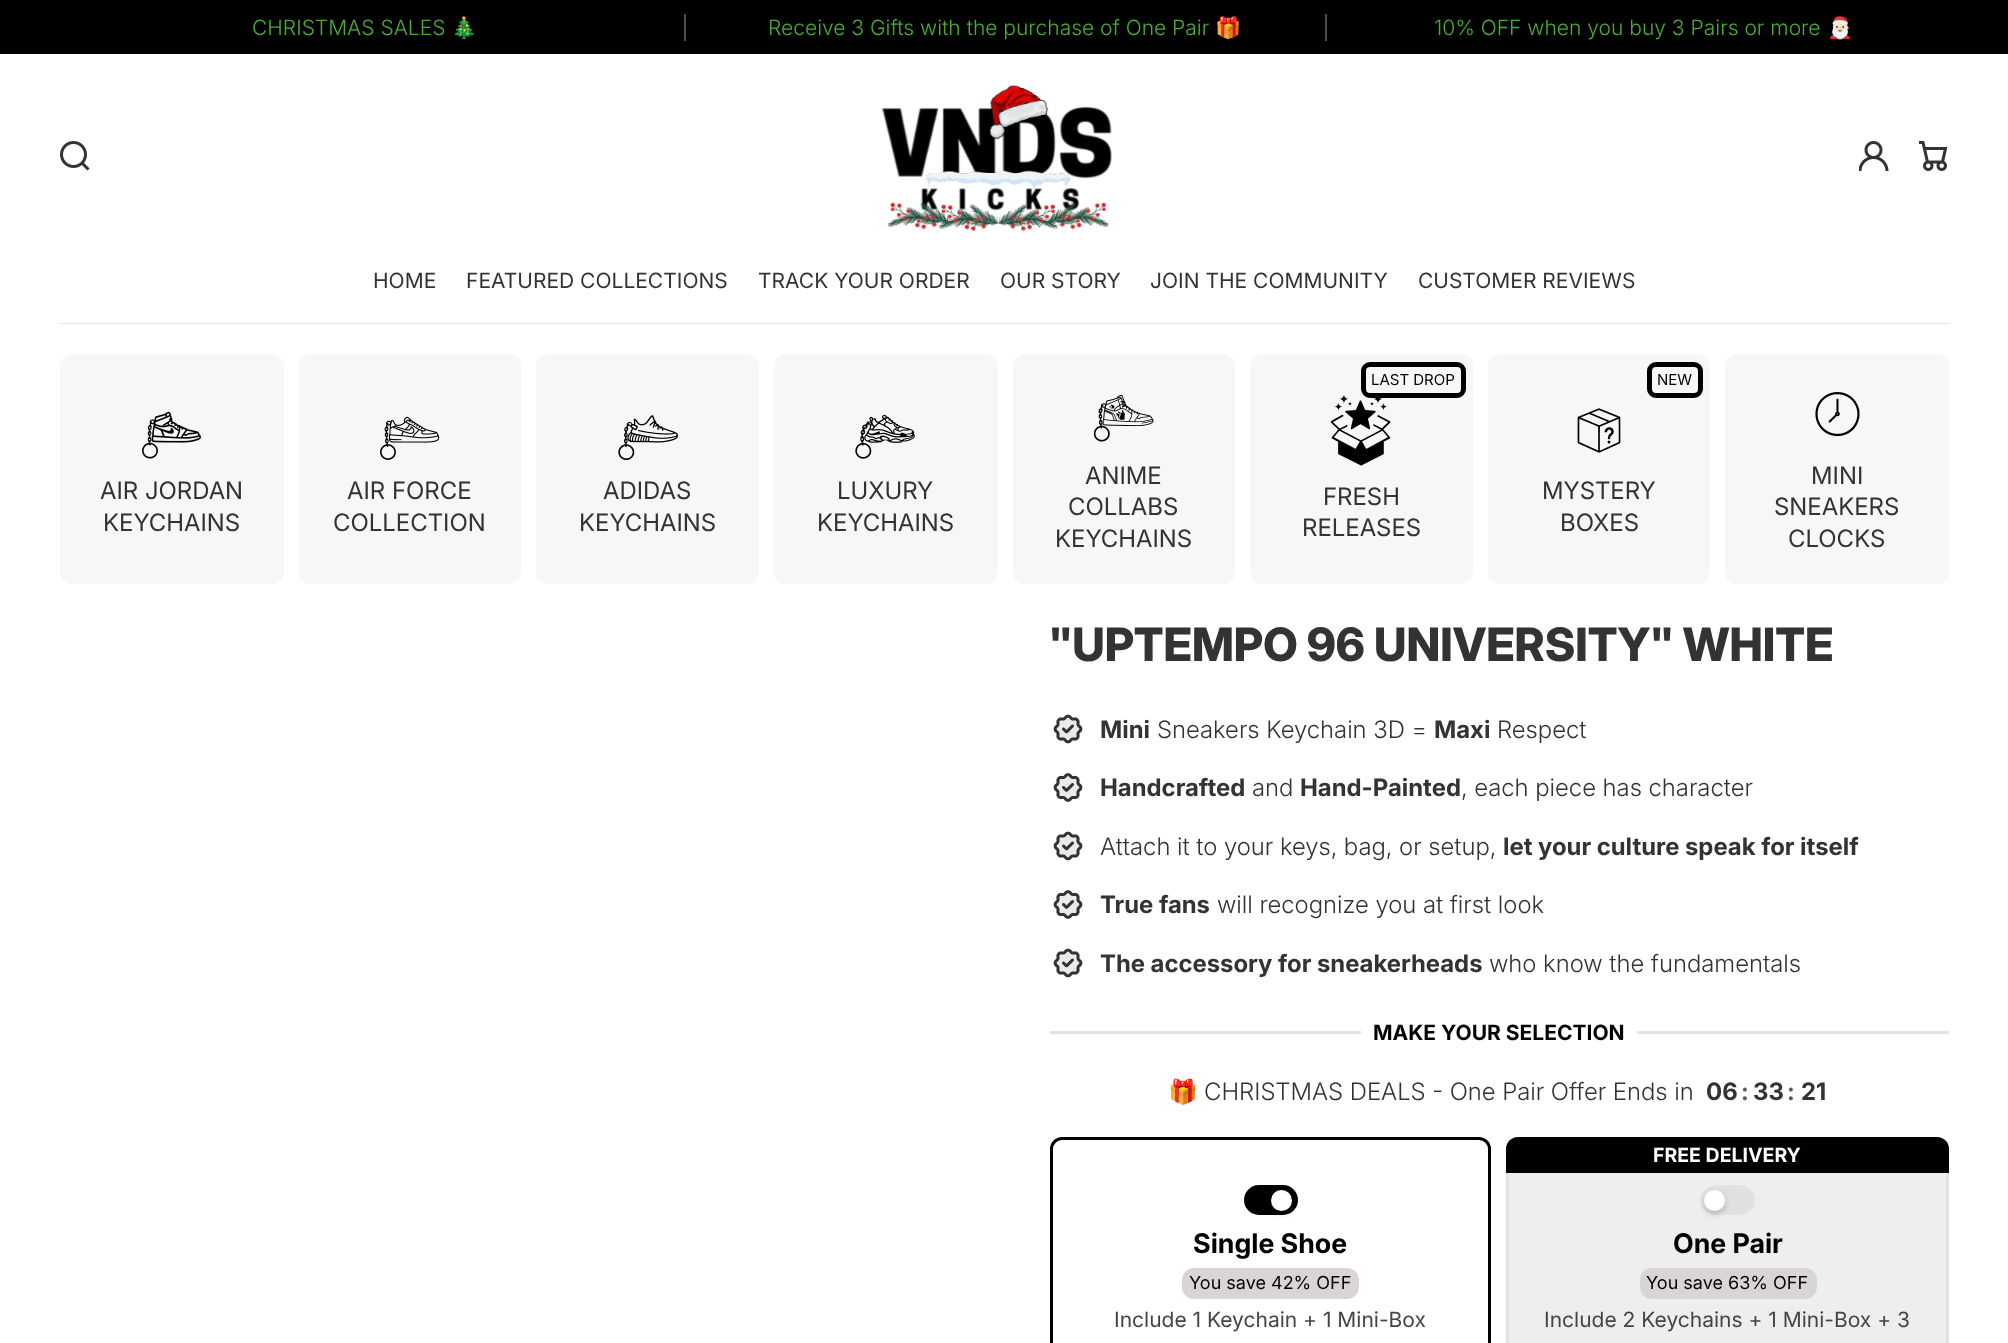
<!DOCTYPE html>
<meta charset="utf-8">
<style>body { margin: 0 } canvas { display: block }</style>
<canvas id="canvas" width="2008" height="1343"></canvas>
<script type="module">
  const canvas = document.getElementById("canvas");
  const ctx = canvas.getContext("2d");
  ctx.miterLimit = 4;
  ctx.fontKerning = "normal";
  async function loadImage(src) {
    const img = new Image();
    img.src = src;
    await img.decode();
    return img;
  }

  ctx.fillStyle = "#ffffff";
  ctx.fillRect(0, 0, 2008, 1343);
  ctx.fillStyle = "#000000";
  ctx.fillRect(0, 0, 2008, 54);
  ctx.font = "300 21px Inter";
  ctx.fillStyle = "#4bae31";
  ctx.fillText("CHRISTMAS SALES", 252, 35);
  ctx.font = "21px Noto Color Emoji";
  ctx.fillText("🎄", 451, 35);
  ctx.fillStyle = "#4d4d4d";
  ctx.fillRect(684, 14, 2, 27);
  ctx.font = "300 21px Inter";
  ctx.fillStyle = "#4bae31";
  ctx.fillText("Receive 3 Gifts with the purchase of One Pair", 768, 35);
  ctx.font = "21px Noto Color Emoji";
  ctx.fillText("🎁", 1215, 35);
  ctx.fillStyle = "#4d4d4d";
  ctx.fillRect(1325, 14, 2, 27);
  ctx.font = "300 21px Inter";
  ctx.fillStyle = "#4bae31";
  ctx.fillText("10% OFF when you buy 3 Pairs or more", 1434, 35);
  ctx.font = "21px Noto Color Emoji";
  ctx.fillText("🎅🏻", 1827, 35);
  ctx.drawImage(await loadImage("img1.png"), 60, 141, 30, 30);
  ctx.drawImage(await loadImage("img2.png"), 881, 85, 231, 146);
  ctx.drawImage(await loadImage("img3.png"), 1859, 141, 30, 30);
  ctx.drawImage(await loadImage("img4.png"), 1919, 141, 29, 30);
  ctx.font = "21px Inter";
  ctx.fillStyle = "#333333";
  ctx.fillText("HOME", 373, 288);
  ctx.fillText("FEATURED COLLECTIONS", 466, 288);
  ctx.fillText("TRACK YOUR ORDER", 758, 288);
  ctx.fillText("OUR STORY", 1000, 288);
  ctx.fillText("JOIN THE COMMUNITY", 1150, 288);
  ctx.fillText("CUSTOMER REVIEWS", 1418, 288);
  ctx.fillStyle = "#e4e4e4";
  ctx.fillRect(60, 323, 1889, 1);
  ctx.fillStyle = "#f7f7f7";
  ctx.beginPath();
  ctx.roundRect(60, 354, 224, 230, 12);
  ctx.fill();
  ctx.drawImage(await loadImage("img5.png"), 142, 411, 59, 48);
  ctx.font = "24px 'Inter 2'";
  ctx.fillStyle = "#333333";
  ctx.fillText("AIR JORDAN", 100, 499);
  ctx.fillText("KEYCHAINS", 103, 531);
  ctx.fillStyle = "#f7f7f7";
  ctx.beginPath();
  ctx.roundRect(299, 354, 222, 230, 12);
  ctx.fill();
  ctx.drawImage(await loadImage("img6.png"), 380, 416, 60, 44);
  ctx.fillStyle = "#333333";
  ctx.fillText("AIR FORCE", 347, 499);
  ctx.fillText("COLLECTION", 333, 531);
  ctx.fillStyle = "#f7f7f7";
  ctx.beginPath();
  ctx.roundRect(536, 354, 223, 230, 12);
  ctx.fill();
  ctx.drawImage(await loadImage("img7.png"), 618, 415, 60, 45);
  ctx.fillStyle = "#333333";
  ctx.fillText("ADIDAS", 603, 499);
  ctx.fillText("KEYCHAINS", 579, 531);
  ctx.fillStyle = "#f7f7f7";
  ctx.beginPath();
  ctx.roundRect(774, 354, 224, 230, 12);
  ctx.fill();
  ctx.drawImage(await loadImage("img8.png"), 855, 414, 60, 45);
  ctx.fillStyle = "#333333";
  ctx.fillText("LUXURY", 837, 499);
  ctx.fillText("KEYCHAINS", 817, 531);
  ctx.fillStyle = "#f7f7f7";
  ctx.beginPath();
  ctx.roundRect(1013, 354, 222, 230, 12);
  ctx.fill();
  ctx.drawImage(await loadImage("img9.png"), 1094, 395, 60, 47);
  ctx.fillStyle = "#333333";
  ctx.fillText("ANIME", 1085, 484);
  ctx.fillText("COLLABS", 1068, 515);
  ctx.fillText("KEYCHAINS", 1055, 547);
  ctx.fillStyle = "#f7f7f7";
  ctx.beginPath();
  ctx.roundRect(1250, 354, 223, 230, 12);
  ctx.fill();
  ctx.drawImage(await loadImage("img10.png"), 1331, 395, 60, 71);
  ctx.beginPath();
  ctx.roundRect(1363.5, 364.5, 100, 31, 6.5);
  ctx.strokeStyle = "#000000";
  ctx.lineWidth = 5;
  ctx.stroke();
  ctx.font = "15px Inter";
  ctx.fillStyle = "#020202";
  ctx.fillText("LAST DROP", 1371, 385);
  ctx.font = "24px 'Inter 2'";
  ctx.fillStyle = "#333333";
  ctx.fillText("FRESH", 1323, 505);
  ctx.fillText("RELEASES", 1302, 536);
  ctx.fillStyle = "#f7f7f7";
  ctx.beginPath();
  ctx.roundRect(1488, 354, 222, 230, 12);
  ctx.fill();
  ctx.beginPath();
  ctx.roundRect(1649.5, 364.5, 51, 31, 6.5);
  ctx.stroke();
  ctx.font = "15px Inter";
  ctx.fillStyle = "#020202";
  ctx.fillText("NEW", 1657, 385);
  ctx.drawImage(await loadImage("img11.png"), 1577, 408, 44, 45);
  ctx.font = "24px 'Inter 2'";
  ctx.fillStyle = "#333333";
  ctx.fillText("MYSTERY", 1542, 499);
  ctx.fillText("BOXES", 1560, 531);
  ctx.fillStyle = "#f7f7f7";
  ctx.beginPath();
  ctx.roundRect(1725, 354, 224, 230, 12);
  ctx.fill();
  ctx.drawImage(await loadImage("img12.png"), 1815, 392, 45, 45);
  ctx.fillStyle = "#333333";
  ctx.fillText("MINI", 1811, 484);
  ctx.fillText("SNEAKERS", 1774, 515);
  ctx.fillText("CLOCKS", 1788, 547);
  ctx.font = "800 45.9px Inter";
  ctx.fillText("\"UPTEMPO 96 UNIVERSITY\" WHITE", 1049, 661);
  ctx.drawImage(await loadImage("img13.png"), 1053, 714, 30, 30);
  ctx.font = "bold 24px Inter";
  ctx.fillText("Mini", 1100, 738);
  ctx.font = "300 24px 'Inter 2'";
  ctx.fillText("Sneakers Keychain 3D =", 1157, 738);
  ctx.font = "bold 24px Inter";
  ctx.fillText("Maxi", 1434, 738);
  ctx.font = "300 24px 'Inter 2'";
  ctx.fillText("Respect", 1497, 738);
  ctx.drawImage(await loadImage("img14.png"), 1053, 773, 30, 29);
  ctx.font = "bold 24px Inter";
  ctx.fillText("Handcrafted", 1100, 796);
  ctx.font = "300 24px 'Inter 2'";
  ctx.fillText("and", 1252, 796);
  ctx.font = "bold 24px Inter";
  ctx.fillText("Hand-Painted", 1300, 796);
  ctx.font = "300 24px 'Inter 2'";
  ctx.fillText(", each piece has character", 1461, 796);
  ctx.drawImage(await loadImage("img13.png"), 1053, 831, 30, 30);
  ctx.fillText("Attach it to your keys, bag, or setup,", 1100, 855);
  ctx.font = "bold 24px Inter";
  ctx.fillText("let your culture speak for itself", 1503, 855);
  ctx.drawImage(await loadImage("img14.png"), 1053, 890, 30, 29);
  ctx.fillText("True fans", 1100, 913);
  ctx.font = "300 24px 'Inter 2'";
  ctx.fillText("will recognize you at first look", 1217, 913);
  ctx.drawImage(await loadImage("img13.png"), 1053, 948, 30, 30);
  ctx.font = "bold 24px Inter";
  ctx.fillText("The accessory for sneakerheads", 1100, 972);
  ctx.font = "300 24px 'Inter 2'";
  ctx.fillText("who know the fundamentals", 1489, 972);
  ctx.fillStyle = "#e2e2e2";
  ctx.fillRect(1050, 1031, 311, 3);
  ctx.font = "bold 21px 'Inter 2'";
  ctx.fillStyle = "#020202";
  ctx.fillText("MAKE YOUR SELECTION", 1373, 1040);
  ctx.fillStyle = "#e2e2e2";
  ctx.fillRect(1637, 1031, 312, 3);
  ctx.font = "24px 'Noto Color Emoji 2'";
  ctx.fillStyle = "#333333";
  ctx.fillText("🎁", 1168, 1100);
  ctx.font = "300 24px 'Inter 2'";
  ctx.fillText("CHRISTMAS DEALS - One Pair Offer Ends in", 1204, 1100);
  ctx.font = "bold 24px Inter";
  ctx.fillText("06", 1706, 1100);
  ctx.fillStyle = "#5c5c5c";
  ctx.fillText(":", 1741, 1100);
  ctx.fillStyle = "#333333";
  ctx.fillText("33", 1753, 1100);
  ctx.fillStyle = "#5c5c5c";
  ctx.fillText(":", 1787, 1100);
  ctx.fillStyle = "#333333";
  ctx.fillText("21", 1801, 1100);
  ctx.beginPath();
  ctx.roundRect(1051.5, 1138.5, 438, 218, 10.5);
  ctx.lineWidth = 3;
  ctx.stroke();
  ctx.fillStyle = "#000000";
  ctx.beginPath();
  ctx.roundRect(1245.5, 1186.5, 51, 27, 13.5);
  ctx.fill();
  ctx.stroke();
  ctx.fillStyle = "rgba(0, 0, 0, 0.2)";
  ctx.filter = "blur(3px)";
  ctx.beginPath();
  ctx.roundRect(1271, 1193, 21, 21, 10.5);
  ctx.fill();
  ctx.filter = "none";
  ctx.fillStyle = "#ffffff";
  ctx.beginPath();
  ctx.arc(1281.5, 1200.5, 10.5, 0, Math.PI * 2);
  ctx.fill();
  ctx.font = "bold 27px 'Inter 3'";
  ctx.fillStyle = "#020202";
  ctx.fillText("Single Shoe", 1193, 1253);
  ctx.fillStyle = "#dad5d5";
  ctx.beginPath();
  ctx.roundRect(1182, 1268, 177, 31, 12);
  ctx.fill();
  ctx.font = "18px Inter";
  ctx.fillStyle = "#020202";
  ctx.fillText("You save 42% OFF", 1189, 1289);
  ctx.font = "21px Inter";
  ctx.fillStyle = "#444444";
  ctx.fillText("Include 1 Keychain + 1 Mini-Box", 1114, 1327);
  ctx.fillStyle = "#eeeeee";
  ctx.beginPath();
  ctx.roundRect(1507.5, 1138.5, 440, 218, 10.5);
  ctx.fill();
  ctx.strokeStyle = "#e2e2e2";
  ctx.stroke();
  ctx.fillStyle = "#000000";
  ctx.beginPath();
  ctx.roundRect(1506, 1137, 443, 36, [12, 12, 0, 0]);
  ctx.fill();
  ctx.font = "bold 19.5px 'Inter 2'";
  ctx.fillStyle = "#ffffff";
  ctx.fillText("FREE DELIVERY", 1653, 1162);
  ctx.fillStyle = "#e0e0e0";
  ctx.beginPath();
  ctx.roundRect(1702.5, 1186.5, 51, 27, 13.5);
  ctx.fill();
  ctx.stroke();
  ctx.fillStyle = "rgba(0, 0, 0, 0.2)";
  ctx.filter = "blur(3px)";
  ctx.beginPath();
  ctx.roundRect(1704, 1193, 21, 21, 10.5);
  ctx.fill();
  ctx.filter = "none";
  ctx.fillStyle = "#ffffff";
  ctx.beginPath();
  ctx.arc(1714.5, 1200.5, 10.5, 0, Math.PI * 2);
  ctx.fill();
  ctx.font = "bold 27px 'Inter 3'";
  ctx.fillStyle = "#020202";
  ctx.fillText("One Pair", 1673, 1253);
  ctx.fillStyle = "#dad5d5";
  ctx.beginPath();
  ctx.roundRect(1640, 1268, 177, 31, 12);
  ctx.fill();
  ctx.font = "18px Inter";
  ctx.fillStyle = "#020202";
  ctx.fillText("You save 63% OFF", 1646, 1289);
  ctx.font = "21px Inter";
  ctx.fillStyle = "#444444";
  ctx.fillText("Include 2 Keychains + 1 Mini-Box + 3", 1544, 1327);
</script>
